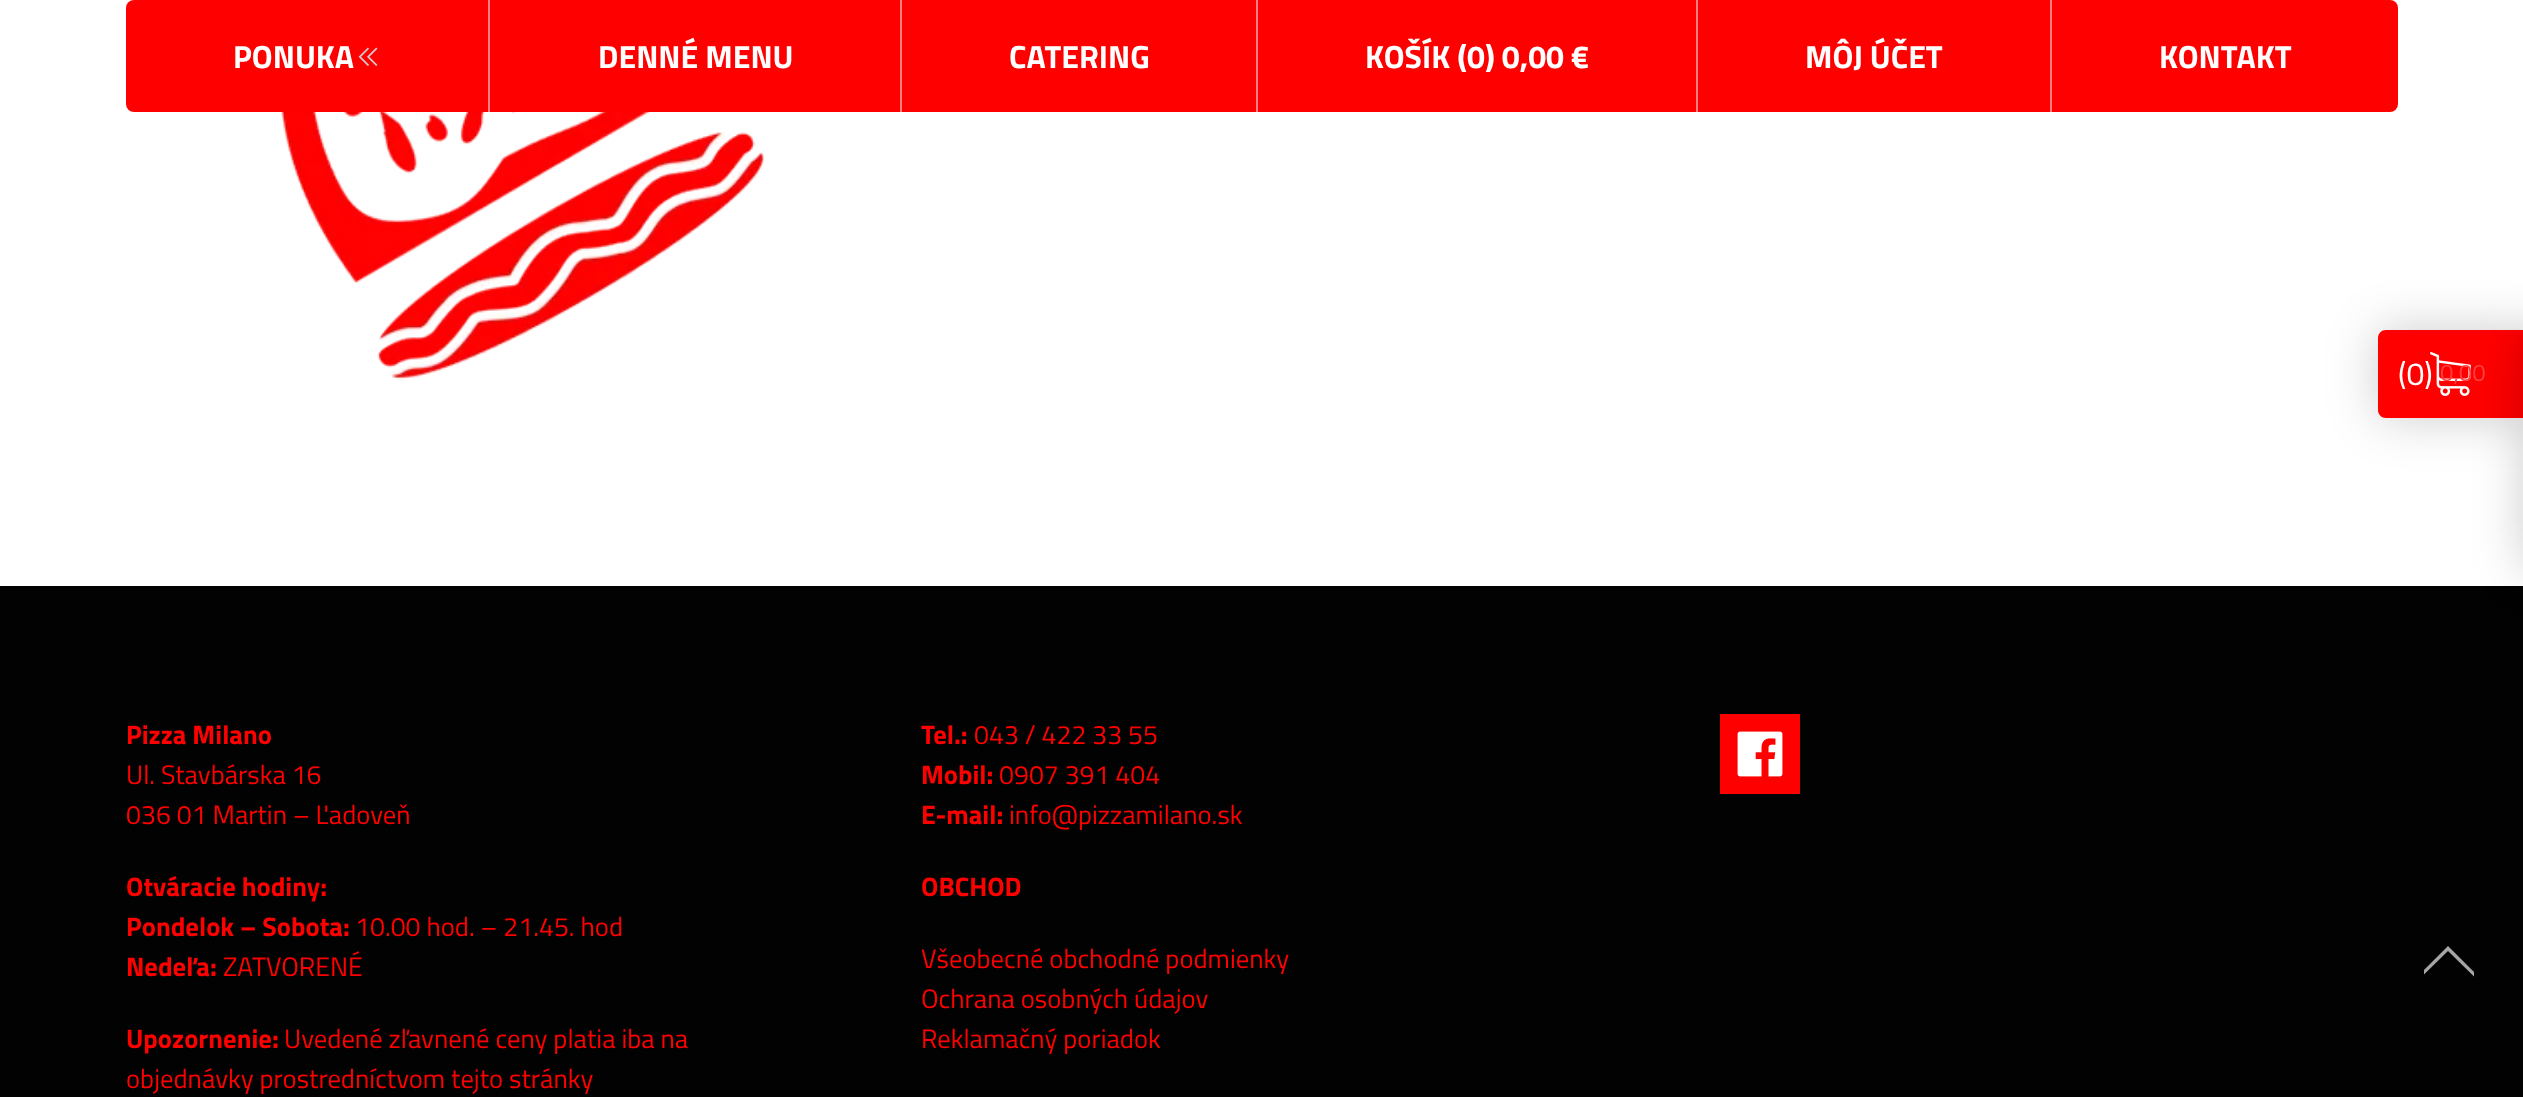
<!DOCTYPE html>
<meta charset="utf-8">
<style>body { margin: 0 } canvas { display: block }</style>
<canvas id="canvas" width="2523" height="1097"></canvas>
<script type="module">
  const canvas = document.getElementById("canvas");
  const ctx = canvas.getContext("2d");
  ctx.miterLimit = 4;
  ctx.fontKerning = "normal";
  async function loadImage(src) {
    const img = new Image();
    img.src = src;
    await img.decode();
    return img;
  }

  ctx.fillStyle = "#ffffff";
  ctx.fillRect(0, 0, 2523, 1097);
  ctx.fillStyle = "#ff0000";
  ctx.beginPath();
  ctx.roundRect(126, 0, 2272, 112, 8);
  ctx.fill();
  ctx.font = "bold 32px Titillium Web";
  ctx.fillStyle = "#ffffff";
  ctx.fillText("PONUKA", 233, 68);
  ctx.drawImage(await loadImage("img1.png"), 358, 47, 20, 19);
  ctx.fillStyle = "#ff8080";
  ctx.fillRect(488, 0, 2, 112);
  ctx.fillStyle = "#ffffff";
  ctx.fillText("DENNÉ MENU", 598, 68);
  ctx.fillStyle = "#ff8080";
  ctx.fillRect(900, 0, 2, 112);
  ctx.fillStyle = "#ffffff";
  ctx.fillText("CATERING", 1009, 68);
  ctx.fillStyle = "#ff8080";
  ctx.fillRect(1256, 0, 2, 112);
  ctx.fillStyle = "#ffffff";
  ctx.fillText("KOŠÍK (0) 0,00 €", 1365, 68);
  ctx.fillStyle = "#ff8080";
  ctx.fillRect(1696, 0, 2, 112);
  ctx.fillStyle = "#ffffff";
  ctx.fillText("MÔJ ÚČET", 1805, 68);
  ctx.fillStyle = "#ff8080";
  ctx.fillRect(2050, 0, 2, 112);
  ctx.fillStyle = "#ffffff";
  ctx.fillText("KONTAKT", 2159, 68);
  ctx.fillStyle = "rgba(0, 0, 0, 0.2)";
  ctx.filter = "blur(25px)";
  ctx.beginPath();
  ctx.roundRect(2378, 330, 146, 88, 8);
  ctx.fill();
  ctx.filter = "none";
  ctx.fillStyle = "#ff0000";
  ctx.beginPath();
  ctx.moveTo(2386, 330);
  ctx.lineTo(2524, 330);
  ctx.lineTo(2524, 418);
  ctx.lineTo(2386, 418);
  ctx.bezierCurveTo(2381.5, 418, 2378, 414.5, 2378, 410);
  ctx.lineTo(2378, 338);
  ctx.bezierCurveTo(2378, 333.5, 2381.5, 330, 2386, 330);
  ctx.closePath();
  ctx.fill();
  ctx.drawImage(await loadImage("img2.png"), 2430, 352, 41, 44);
  ctx.font = "32px Titillium Web";
  ctx.fillStyle = "#ffffff";
  ctx.fillText("(0)", 2398, 385);
  ctx.font = "24px Titillium Web";
  ctx.fillStyle = "#ff3f3f";
  ctx.fillText("0,00", 2440, 381);
  ctx.fillStyle = "#020202";
  ctx.fillRect(0, 586, 2523, 511);
  ctx.fillStyle = "rgba(0, 0, 0, 0.2)";
  ctx.filter = "blur(25px)";
  ctx.beginPath();
  ctx.roundRect(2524, 330, 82, 240, 8);
  ctx.fill();
  ctx.filter = "none";
  ctx.drawImage(await loadImage("img3.png"), 281, 112, 484, 269);
  ctx.font = "bold 26.7px Titillium Web";
  ctx.fillStyle = "#ff0000";
  ctx.fillText("Pizza Milano", 126, 744);
  ctx.font = "26.7px Titillium Web";
  ctx.fillText("Ul. Stavbárska 16", 126, 784);
  ctx.fillText("036 01 Martin – Ľadoveň", 126, 824);
  ctx.font = "bold 26.7px Titillium Web";
  ctx.fillText("Otváracie hodiny:", 126, 896);
  ctx.fillText("Pondelok – Sobota:", 126, 936);
  ctx.font = "26.7px Titillium Web";
  ctx.fillText("10.00 hod. – 21.45. hod", 355, 936);
  ctx.font = "bold 26.7px Titillium Web";
  ctx.fillText("Nedeľa:", 126, 976);
  ctx.font = "26.7px Titillium Web";
  ctx.fillText("ZATVORENÉ", 223, 976);
  ctx.font = "bold 26.7px Titillium Web";
  ctx.fillText("Upozornenie:", 126, 1048);
  ctx.font = "26.7px Titillium Web";
  ctx.fillText("Uvedené zľavnené ceny platia iba na", 284, 1048);
  ctx.fillText("objednávky prostredníctvom tejto stránky", 126, 1088);
  ctx.font = "bold 26.7px Titillium Web";
  ctx.fillText("Tel.:", 921, 744);
  ctx.font = "26.7px Titillium Web";
  ctx.fillText("043 / 422 33 55", 974, 744);
  ctx.font = "bold 26.7px Titillium Web";
  ctx.fillText("Mobil:", 921, 784);
  ctx.font = "26.7px Titillium Web";
  ctx.fillText("0907 391 404", 999, 784);
  ctx.font = "bold 26.7px Titillium Web";
  ctx.fillText("E-mail:", 921, 824);
  ctx.font = "26.7px Titillium Web";
  ctx.fillText("info@pizzamilano.sk", 1009, 824);
  ctx.font = "bold 26.7px Titillium Web";
  ctx.fillText("OBCHOD", 921, 896);
  ctx.font = "26.7px Titillium Web";
  ctx.fillText("Všeobecné obchodné podmienky", 921, 968);
  ctx.fillText("Ochrana osobných údajov", 921, 1008);
  ctx.fillText("Reklamačný poriadok", 921, 1048);
  ctx.fillStyle = "#ffffff";
  ctx.fillRect(1737, 731, 46, 46);
  ctx.drawImage(await loadImage("img4.png"), 1720, 714, 80, 80);
  ctx.save();
  ctx.beginPath();
  ctx.rect(2424, 946, 50, 52);
  ctx.clip();
  ctx.fillStyle = "#a5a5a5";
  ctx.beginPath();
  ctx.moveTo(2496, 994);
  ctx.lineTo(2494, 996);
  ctx.lineTo(2448, 951);
  ctx.lineTo(2402, 996);
  ctx.lineTo(2400, 994);
  ctx.lineTo(2448, 946);
  ctx.closePath();
  ctx.fill();
  ctx.restore();
</script>
